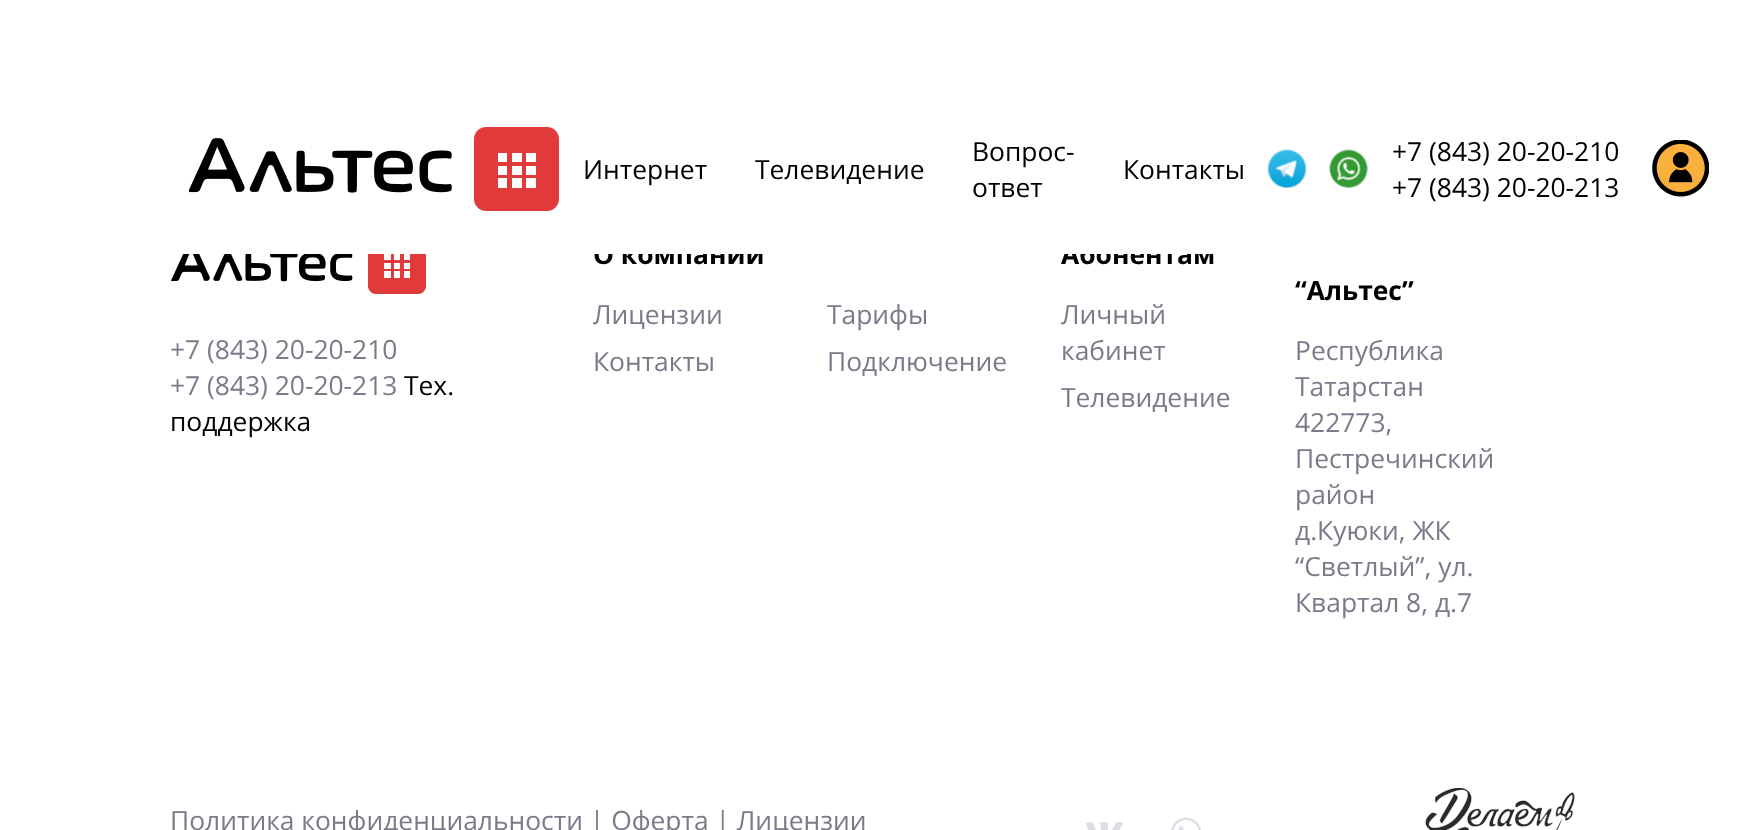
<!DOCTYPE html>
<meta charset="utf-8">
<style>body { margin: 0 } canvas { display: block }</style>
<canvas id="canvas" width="1744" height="830"></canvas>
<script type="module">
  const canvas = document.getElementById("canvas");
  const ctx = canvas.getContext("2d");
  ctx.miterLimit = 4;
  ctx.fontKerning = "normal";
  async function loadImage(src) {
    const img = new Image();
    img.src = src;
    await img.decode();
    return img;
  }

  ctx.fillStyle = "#ffffff";
  ctx.fillRect(0, 0, 1744, 830);
  ctx.font = "bold 26.4px Open Sans";
  ctx.fillStyle = "#000000";
  ctx.fillText("О компании", 593, 264);
  ctx.fillText("Абонентам", 1061, 264);
  ctx.fillStyle = "#ffffff";
  ctx.fillRect(594, 243, 620, 11);
  ctx.drawImage(await loadImage("img1.png"), 189, 127, 370, 84);
  ctx.font = "26.4px Open Sans";
  ctx.fillStyle = "#000000";
  ctx.fillText("Интернет", 583, 179);
  ctx.fillText("Телевидение", 755, 179);
  ctx.fillText("Вопрос-", 972, 161);
  ctx.fillText("ответ", 972, 197);
  ctx.fillText("Контакты", 1123, 179);
  ctx.drawImage(await loadImage("img2.png"), 1267, 149, 40, 39);
  ctx.drawImage(await loadImage("img3.png"), 1329, 149, 39, 39);
  ctx.fillText("+7 (843) 20-20-210", 1392, 161);
  ctx.fillText("+7 (843) 20-20-213", 1392, 197);
  ctx.drawImage(await loadImage("img4.png"), 1652, 140, 57, 57);
  ctx.drawImage(await loadImage("img5.png"), 171, 254, 255, 40);
  ctx.fillStyle = "#797b89";
  ctx.fillText("+7 (843) 20-20-210", 170, 359);
  ctx.fillText("+7 (843) 20-20-213", 170, 395);
  ctx.fillStyle = "#000000";
  ctx.fillText("Тех.", 404, 395);
  ctx.fillText("поддержка", 170, 431);
  ctx.fillStyle = "#797b89";
  ctx.fillText("Лицензии", 593, 324);
  ctx.fillText("Контакты", 593, 371);
  ctx.fillText("Тарифы", 827, 324);
  ctx.fillText("Подключение", 827, 371);
  ctx.fillText("Личный", 1061, 324);
  ctx.fillText("кабинет", 1061, 360);
  ctx.fillText("Телевидение", 1061, 407);
  ctx.font = "bold 26.4px Open Sans";
  ctx.fillStyle = "#000000";
  ctx.fillText("“Альтес”", 1295, 300);
  ctx.font = "26.4px Open Sans";
  ctx.fillStyle = "#797b89";
  ctx.fillText("Республика", 1295, 360);
  ctx.fillText("Татарстан", 1295, 396);
  ctx.fillText("422773,", 1295, 432);
  ctx.fillText("Пестречинский", 1295, 468);
  ctx.fillText("район", 1295, 504);
  ctx.fillText("д.Куюки, ЖК", 1295, 540);
  ctx.fillText("“Светлый”, ул.", 1295, 576);
  ctx.fillText("Квартал 8, д.7", 1295, 612);
  ctx.fillText("Политика конфиденциальности | Оферта | Лицензии", 170, 830);
  ctx.drawImage(await loadImage("img6.png"), 1086, 822, 37, 8);
  ctx.drawImage(await loadImage("img7.png"), 1171, 817, 30, 13);
  ctx.drawImage(await loadImage("img8.png"), 1425, 788, 150, 42);
</script>
